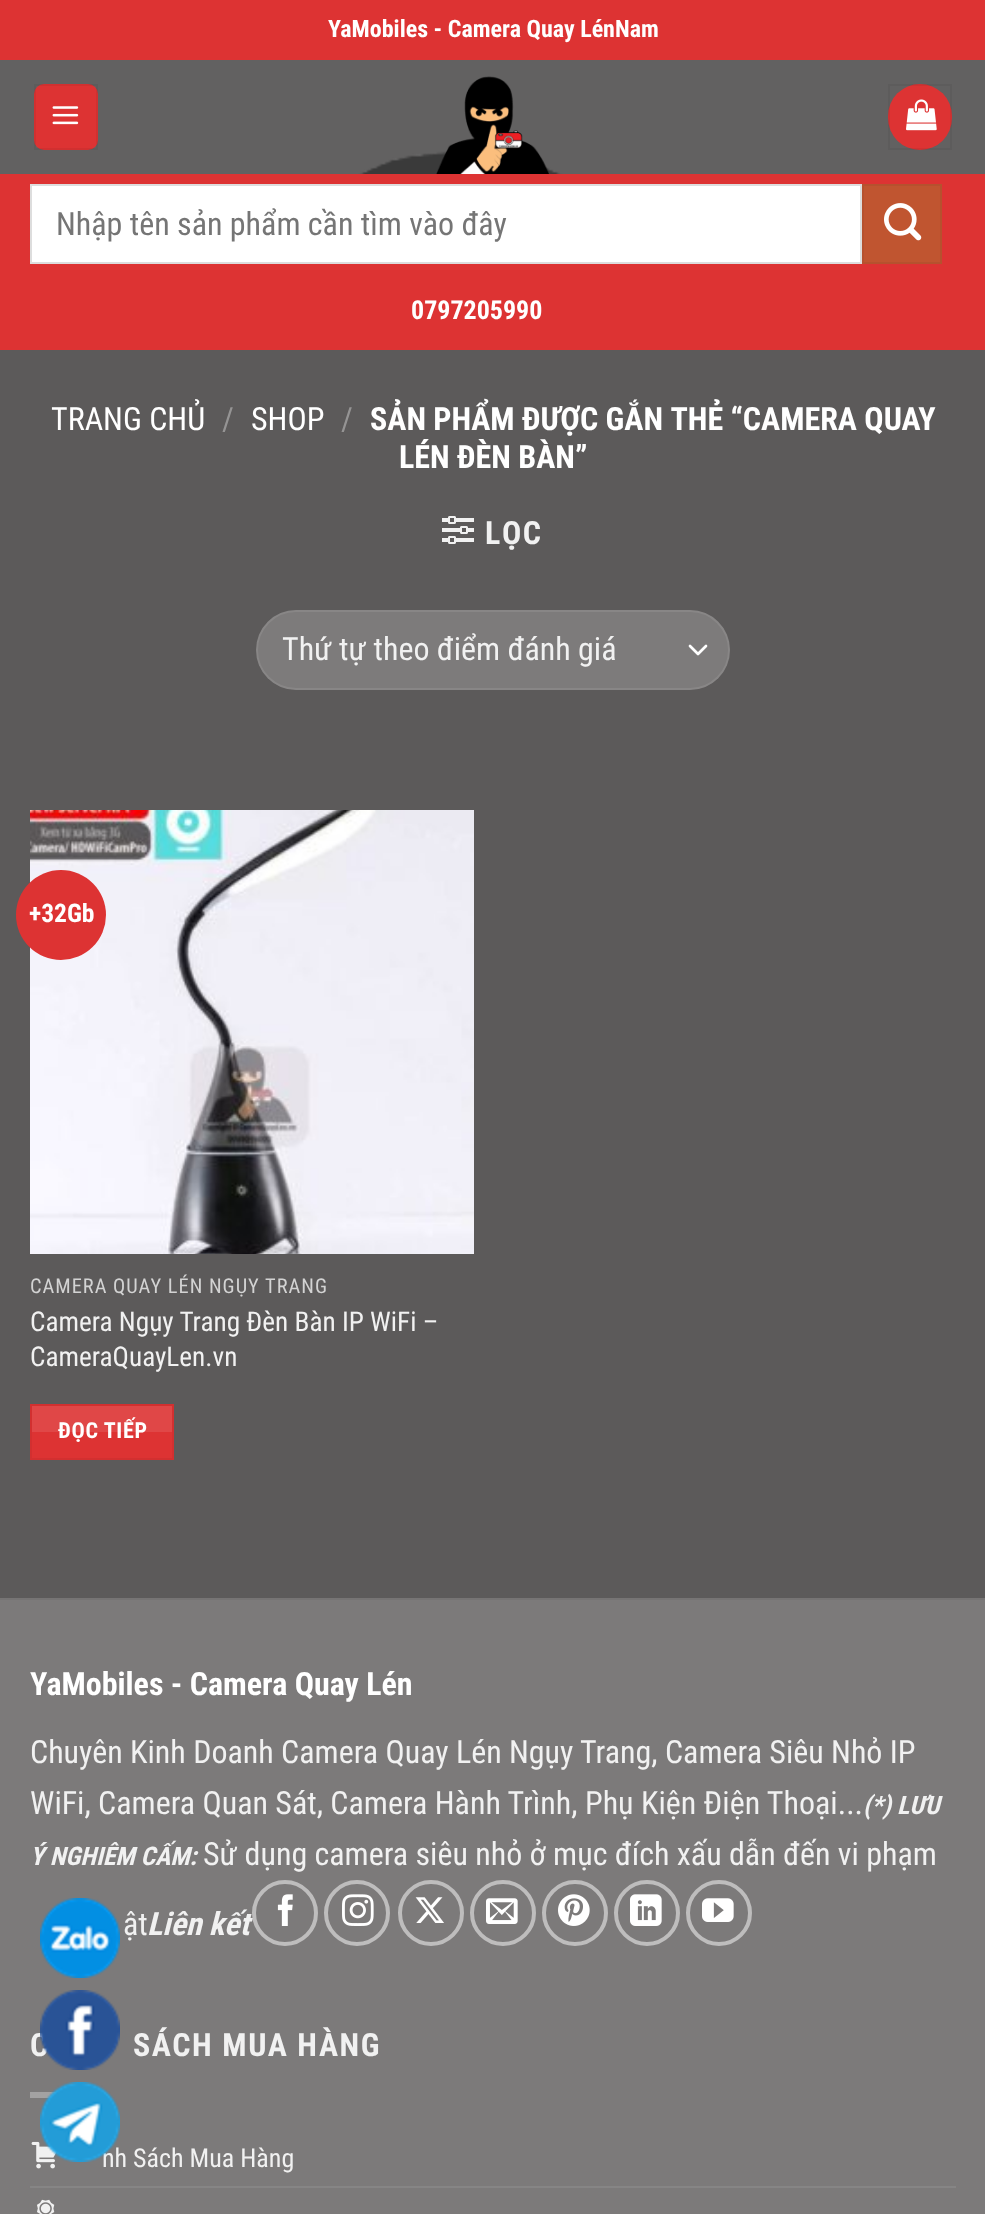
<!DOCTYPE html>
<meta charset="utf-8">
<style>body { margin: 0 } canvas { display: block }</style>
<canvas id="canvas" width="985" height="2214"></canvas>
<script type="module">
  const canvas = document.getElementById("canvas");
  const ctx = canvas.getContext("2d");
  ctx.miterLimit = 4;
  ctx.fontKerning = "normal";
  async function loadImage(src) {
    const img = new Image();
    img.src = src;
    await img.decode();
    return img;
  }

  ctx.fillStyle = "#5c5a5a";
  ctx.fillRect(0, 0, 985, 2214);
  ctx.fillStyle = "#626161";
  ctx.fillRect(0, 60, 985, 114);
  ctx.fillStyle = "#dd3333";
  ctx.fillRect(0, 0, 985, 60);
  ctx.font = "bold 24px Roboto Condensed";
  ctx.fillStyle = "#ffffff";
  ctx.fillText("YaMobiles - Camera Quay LénNam", 328, 37);
  ctx.fillStyle = "#dd3333";
  ctx.beginPath();
  ctx.roundRect(34, 84, 64, 66, 10);
  ctx.fill();
  ctx.strokeStyle = "rgba(0, 0, 0, 0.05)";
  ctx.lineWidth = 2;
  ctx.strokeRect(35, 85, 62, 64);
  ctx.drawImage(await loadImage("img1.png"), 52, 106, 27, 19);
  ctx.drawImage(await loadImage("img4.png"), 357, 151, 206, 23);
  ctx.drawImage(await loadImage("img2.png"), 436, 76, 113, 98);
  ctx.beginPath();
  ctx.roundRect(888, 84, 64, 66, 32);
  ctx.fill();
  ctx.strokeRect(889, 85, 62, 64);
  ctx.drawImage(await loadImage("img3.png"), 906, 99, 31, 32);
  ctx.fillRect(0, 174, 985, 176);
  ctx.fillStyle = "#ffffff";
  ctx.beginPath();
  ctx.rect(31, 185, 830, 78);
  ctx.fill();
  ctx.strokeStyle = "#dddddd";
  ctx.stroke();
  ctx.font = "32px Roboto Condensed";
  ctx.fillStyle = "#757575";
  ctx.fillText("Nhập tên sản phẩm cần tìm vào đây", 56, 235);
  ctx.fillStyle = "#c05530";
  ctx.beginPath();
  ctx.rect(863, 185, 78, 78);
  ctx.fill();
  ctx.strokeStyle = "#b6512e";
  ctx.stroke();
  ctx.drawImage(await loadImage("img5.png"), 884, 203, 38, 38);
  ctx.font = "bold 26px Roboto Condensed";
  ctx.fillStyle = "#ffffff";
  ctx.fillText("0797205990", 411, 319);
  ctx.font = "32px Roboto Condensed";
  ctx.fillText("TRANG CHỦ", 51, 430);
  ctx.fillStyle = "#959494";
  ctx.fillText("/", 222, 430);
  ctx.fillStyle = "#ffffff";
  ctx.fillText("SHOP", 251, 430);
  ctx.fillStyle = "#959494";
  ctx.fillText("/", 341, 430);
  ctx.font = "bold 32px Roboto Condensed";
  ctx.fillStyle = "#ffffff";
  ctx.fillText("SẢN PHẨM ĐƯỢC GẮN THẺ “CAMERA QUAY", 370, 430);
  ctx.fillText("LÉN ĐÈN BÀN”", 399, 468);
  ctx.drawImage(await loadImage("img6.png"), 442, 516, 32, 28);
  ctx.letterSpacing = "1.6px";
  ctx.fillStyle = "#f1f1f1";
  ctx.fillText("LỌC", 485, 544);
  ctx.fillStyle = "#7d7b7b";
  ctx.beginPath();
  ctx.roundRect(256, 610, 474, 80, 40);
  ctx.fill();
  ctx.beginPath();
  ctx.moveTo(690, 646);
  ctx.lineTo(698, 654);
  ctx.lineTo(706, 646);
  ctx.strokeStyle = "#ffffff";
  ctx.lineWidth = 2.7;
  ctx.lineCap = "round";
  ctx.lineJoin = "round";
  ctx.stroke();
  ctx.beginPath();
  ctx.roundRect(257, 611, 472, 78, 39);
  ctx.strokeStyle = "rgba(255, 255, 255, 0.09)";
  ctx.lineWidth = 2;
  ctx.lineJoin = "miter";
  ctx.stroke();
  ctx.letterSpacing = "0px";
  ctx.font = "32px Roboto Condensed";
  ctx.fillStyle = "#f1f1f1";
  ctx.fillText("Thứ tự theo điểm đánh giá", 282, 660);
  ctx.drawImage(await loadImage("img7.png"), 30, 810, 444, 444);
  ctx.fillStyle = "#dd3333";
  ctx.beginPath();
  ctx.arc(61, 915, 45, 0, Math.PI * 2);
  ctx.fill();
  ctx.font = "bold 25.5px Roboto Condensed";
  ctx.fillStyle = "#ffffff";
  ctx.fillText("+32Gb", 29, 922);
  ctx.letterSpacing = "1px";
  ctx.font = "20.4px Roboto Condensed";
  ctx.fillStyle = "#d3d3d3";
  ctx.fillText("CAMERA QUAY LÉN NGỤY TRANG", 30, 1293);
  ctx.letterSpacing = "0px";
  ctx.font = "27.25px Roboto Condensed";
  ctx.fillStyle = "#f1f1f1";
  ctx.fillText("Camera Ngụy Trang Đèn Bàn IP WiFi –", 30, 1331);
  ctx.fillText("CameraQuayLen.vn", 30, 1366);
  ctx.fillStyle = "#dd3333";
  ctx.beginPath();
  ctx.rect(31, 1405, 142, 54);
  ctx.fill();
  ctx.strokeStyle = "#d23030";
  ctx.stroke();
  ctx.fillStyle = "rgba(255, 255, 255, 0.1)";
  ctx.fillRect(32, 1406, 140, 26);
  ctx.letterSpacing = "0.75px";
  ctx.wordSpacing = "-1px";
  ctx.font = "bold 22px Roboto Condensed";
  ctx.fillStyle = "#ffffff";
  ctx.fillText("ĐỌC TIẾP", 58, 1438);
  ctx.fillStyle = "#7c7a7a";
  ctx.fillRect(0, 1600, 985, 614);
  ctx.fillStyle = "#767474";
  ctx.fillRect(0, 1598, 985, 2);
  ctx.letterSpacing = "0px";
  ctx.wordSpacing = "0px";
  ctx.font = "bold 32px Roboto Condensed";
  ctx.fillStyle = "#ffffff";
  ctx.fillText("YaMobiles - Camera Quay Lén", 30, 1695);
  ctx.font = "32px Roboto Condensed";
  ctx.fillStyle = "#f1f1f1";
  ctx.fillText("Chuyên Kinh Doanh Camera Quay Lén Ngụy Trang, Camera Siêu Nhỏ IP", 30, 1763);
  ctx.fillText("WiFi, Camera Quan Sát, Camera Hành Trình, Phụ Kiện Điện Thoại...", 30, 1814);
  ctx.font = "italic bold 25.5px Roboto Condensed";
  ctx.fillText("(*) LƯU", 863, 1814);
  ctx.fillText("Ý NGHIÊM CẤM:", 30, 1865);
  ctx.font = "32px Roboto Condensed";
  ctx.fillText("Sử dụng camera siêu nhỏ ở mục đích xấu dẫn đến vi phạm", 203, 1865);
  ctx.fillText("ật", 123, 1935);
  ctx.font = "italic bold 32px Roboto Condensed";
  ctx.fillText("Liên kết", 147, 1935);
  ctx.beginPath();
  ctx.arc(285, 1913, 31, 0, Math.PI * 2);
  ctx.strokeStyle = "rgba(255, 255, 255, 0.5)";
  ctx.lineWidth = 4;
  ctx.stroke();
  ctx.drawImage(await loadImage("img8.png"), 277, 1894, 16, 32);
  ctx.beginPath();
  ctx.arc(357, 1913, 31, 0, Math.PI * 2);
  ctx.strokeStyle = "#bebdbd";
  ctx.stroke();
  ctx.drawImage(await loadImage("img9.png"), 342, 1894, 32, 32);
  ctx.beginPath();
  ctx.arc(431, 1913, 31, 0, Math.PI * 2);
  ctx.stroke();
  ctx.drawImage(await loadImage("img10.png"), 415, 1897, 29, 26);
  ctx.beginPath();
  ctx.arc(503, 1913, 31, 0, Math.PI * 2);
  ctx.stroke();
  ctx.drawImage(await loadImage("img11.png"), 486, 1898, 32, 26);
  ctx.beginPath();
  ctx.arc(575, 1913, 31, 0, Math.PI * 2);
  ctx.stroke();
  ctx.drawImage(await loadImage("img12.png"), 558, 1894, 32, 32);
  ctx.beginPath();
  ctx.arc(647, 1913, 31, 0, Math.PI * 2);
  ctx.stroke();
  ctx.drawImage(await loadImage("img13.png"), 630, 1894, 32, 32);
  ctx.beginPath();
  ctx.arc(719, 1913, 31, 0, Math.PI * 2);
  ctx.stroke();
  ctx.drawImage(await loadImage("img14.png"), 702, 1898, 32, 24);
  ctx.letterSpacing = "1.6px";
  ctx.font = "bold 32px Roboto Condensed";
  ctx.fillText("C", 30, 2056);
  ctx.fillText("SÁCH MUA HÀNG", 133, 2056);
  ctx.fillStyle = "#a3a2a2";
  ctx.fillRect(30, 2092, 27, 6);
  ctx.drawImage(await loadImage("img15.png"), 31, 2141, 26, 28);
  ctx.letterSpacing = "0px";
  ctx.font = "26px Roboto Condensed";
  ctx.fillStyle = "#f1f1f1";
  ctx.fillText("nh Sách Mua Hàng", 102, 2167);
  ctx.fillStyle = "#868585";
  ctx.fillRect(30, 2186, 926, 2);
  ctx.drawImage(await loadImage("img16.png"), 37, 2199, 18, 15);
  ctx.drawImage(await loadImage("img17.png"), 40, 1898, 80, 80);
  ctx.drawImage(await loadImage("img18.png"), 40, 1990, 80, 80);
  ctx.drawImage(await loadImage("img19.png"), 40, 2082, 80, 80);
</script>
